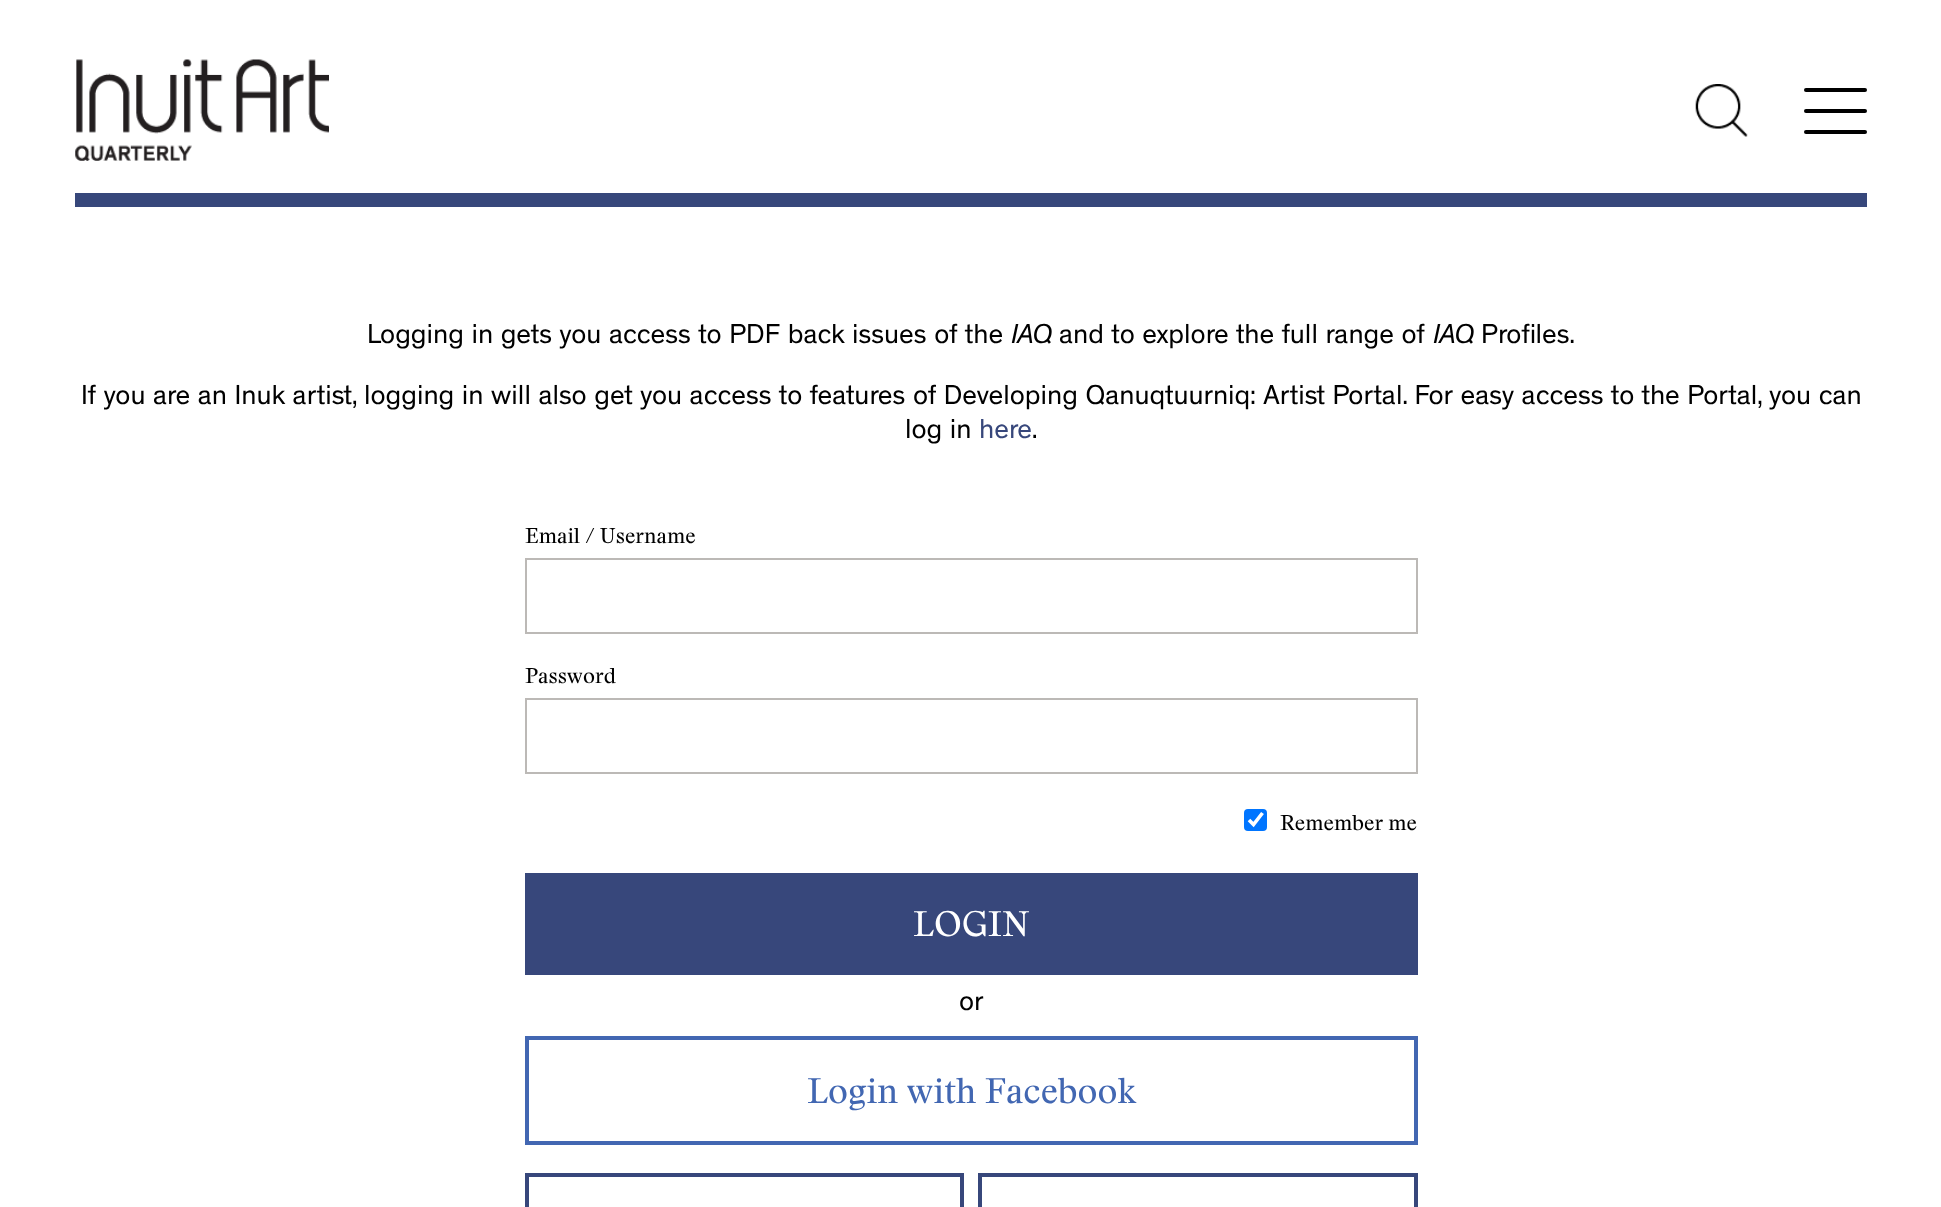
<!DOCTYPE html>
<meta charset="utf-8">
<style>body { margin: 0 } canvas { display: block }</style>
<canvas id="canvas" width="1941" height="1207"></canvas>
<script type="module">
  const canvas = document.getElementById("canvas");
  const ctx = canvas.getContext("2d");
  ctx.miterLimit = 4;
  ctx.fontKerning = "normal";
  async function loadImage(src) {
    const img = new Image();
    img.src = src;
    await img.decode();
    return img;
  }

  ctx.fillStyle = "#ffffff";
  ctx.fillRect(0, 0, 1941, 1207);
  ctx.drawImage(await loadImage("img1.png"), 75, 59, 254, 102);
  ctx.drawImage(await loadImage("img2.png"), 1695, 84, 53, 53);
  ctx.fillStyle = "#000000";
  ctx.beginPath();
  ctx.roundRect(1804, 88, 63, 4, 2);
  ctx.fill();
  ctx.beginPath();
  ctx.roundRect(1804, 109, 63, 4, 2);
  ctx.fill();
  ctx.beginPath();
  ctx.roundRect(1804, 130, 63, 4, 2);
  ctx.fill();
  ctx.fillStyle = "#37477b";
  ctx.fillRect(75, 193, 1792, 14);
  ctx.font = "28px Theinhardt";
  ctx.fillStyle = "#000000";
  ctx.fillText("Logging in gets you access to PDF back issues of the", 367, 343);
  ctx.font = "italic 28px Theinhardt";
  ctx.fillText("IAQ", 1011, 343);
  ctx.font = "28px Theinhardt";
  ctx.fillText("and to explore the full range of", 1059, 343);
  ctx.font = "italic 28px Theinhardt";
  ctx.fillText("IAQ", 1433, 343);
  ctx.font = "28px Theinhardt";
  ctx.fillText("Profiles.", 1481, 343);
  ctx.fillText("If you are an Inuk artist, logging in will also get you access to features of Developing Qanuqtuurniq: Artist Portal. For easy access to the Portal, you can", 81, 404);
  ctx.fillText("log in", 905, 438);
  ctx.fillStyle = "#37477b";
  ctx.fillText("here", 979, 438);
  ctx.fillStyle = "#000000";
  ctx.fillText(".", 1032, 438);
  ctx.font = "21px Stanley";
  ctx.fillText("Email / Username", 525, 543);
  ctx.strokeStyle = "#bcb9b6";
  ctx.lineWidth = 2;
  ctx.strokeRect(526, 559, 891, 74);
  ctx.fillText("Password", 525, 683);
  ctx.strokeRect(526, 699, 891, 74);
  ctx.fillStyle = "#0075ff";
  ctx.beginPath();
  ctx.roundRect(1244, 809, 23, 22, 4);
  ctx.fill();
  ctx.beginPath();
  ctx.moveTo(1249, 820);
  ctx.lineTo(1253.5, 824.5);
  ctx.lineTo(1262.5, 813);
  ctx.strokeStyle = "#ffffff";
  ctx.lineWidth = 3.6;
  ctx.stroke();
  ctx.fillStyle = "#000000";
  ctx.fillText("Remember me", 1280, 830);
  ctx.fillStyle = "#37477b";
  ctx.fillRect(525, 873, 893, 102);
  ctx.font = "35px Stanley";
  ctx.fillStyle = "#ffffff";
  ctx.fillText("LOGIN", 913, 936);
  ctx.font = "28px Theinhardt";
  ctx.fillStyle = "#000000";
  ctx.fillText("or", 959, 1010);
  ctx.strokeStyle = "#4267b2";
  ctx.lineWidth = 4;
  ctx.strokeRect(527, 1038, 889, 105);
  ctx.font = "35px Stanley";
  ctx.fillStyle = "#4267b2";
  ctx.fillText("Login with Facebook", 807, 1103);
  ctx.strokeStyle = "#37477b";
  ctx.strokeRect(527, 1175, 435, 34);
  ctx.strokeRect(980, 1175, 436, 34);
</script>
